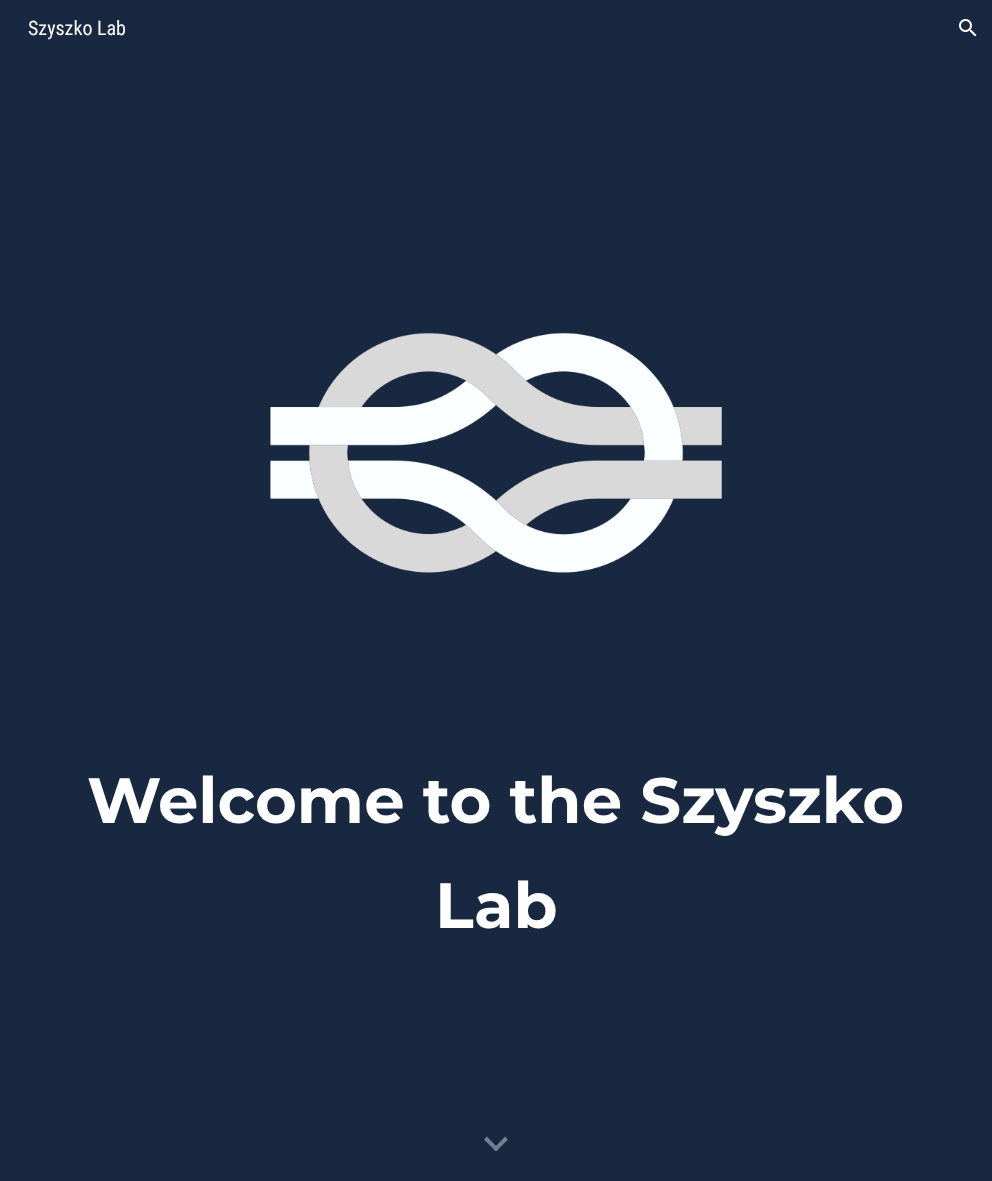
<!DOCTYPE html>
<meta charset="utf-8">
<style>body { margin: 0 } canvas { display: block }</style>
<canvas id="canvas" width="992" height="1181"></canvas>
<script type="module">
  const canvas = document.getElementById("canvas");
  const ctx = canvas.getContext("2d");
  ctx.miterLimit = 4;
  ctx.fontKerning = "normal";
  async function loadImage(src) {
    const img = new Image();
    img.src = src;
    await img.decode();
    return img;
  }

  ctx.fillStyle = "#192841";
  ctx.fillRect(0, 0, 992, 1181);
  ctx.font = "20px Roboto Condensed";
  ctx.fillStyle = "#ffffff";
  ctx.fillText("Szyszko Lab", 28, 35);
  ctx.drawImage(await loadImage("img1.png"), 959, 19, 18, 18);
  ctx.drawImage(await loadImage("img2.png"), 270, 332, 452, 241);
  ctx.font = "bold 64px Montserrat";
  ctx.fillText("Welcome to the Szyszko", 87, 823);
  ctx.fillText("Lab", 435, 928);
  ctx.fillStyle = "#757e8d";
  ctx.beginPath();
  ctx.moveTo(487, 1136.5);
  ctx.lineTo(496, 1146);
  ctx.lineTo(505, 1136.5);
  ctx.lineTo(508, 1139.5);
  ctx.lineTo(496, 1151.5);
  ctx.lineTo(484, 1139.5);
  ctx.closePath();
  ctx.fill();
</script>
